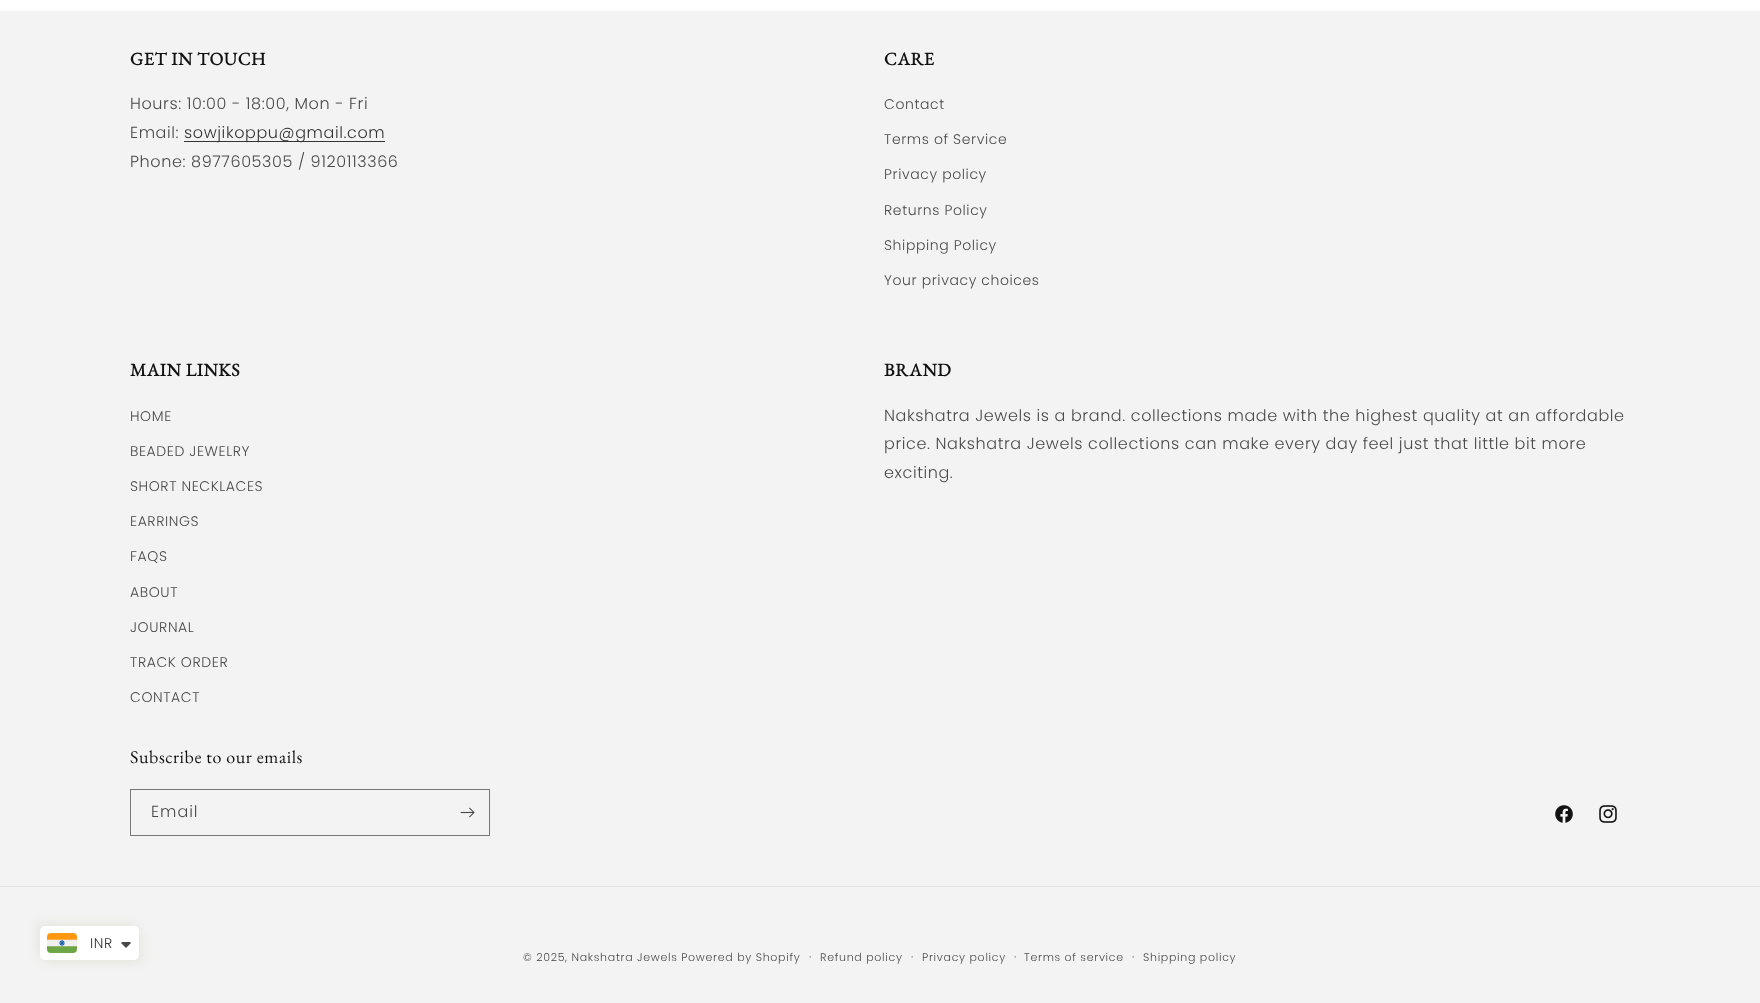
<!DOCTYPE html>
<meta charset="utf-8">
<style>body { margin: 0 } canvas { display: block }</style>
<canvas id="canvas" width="1760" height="1003"></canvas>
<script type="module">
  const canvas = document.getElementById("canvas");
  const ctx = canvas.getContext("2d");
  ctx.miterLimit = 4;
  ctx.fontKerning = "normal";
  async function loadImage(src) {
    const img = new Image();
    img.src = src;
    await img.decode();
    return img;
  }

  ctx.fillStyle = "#ffffff";
  ctx.fillRect(0, 0, 1760, 1003);
  ctx.fillStyle = "#f3f3f3";
  ctx.fillRect(0, 11, 1760, 992);
  ctx.fillStyle = "#e8e8e2";
  ctx.filter = "blur(4.5px)";
  ctx.beginPath();
  ctx.roundRect(36, 922, 99, 34, 5);
  ctx.fill();
  ctx.filter = "none";
  ctx.filter = "blur(4.5px)";
  ctx.beginPath();
  ctx.roundRect(44, 930, 99, 34, 5);
  ctx.fill();
  ctx.filter = "none";
  ctx.fillStyle = "#ffffff";
  ctx.beginPath();
  ctx.roundRect(40, 926, 99, 34, 5);
  ctx.fill();
  ctx.drawImage(await loadImage("img1.png"), 47, 933, 30, 20);
  ctx.letterSpacing = "0.6px";
  ctx.font = "300 14px Poppins";
  ctx.fillStyle = "#333333";
  ctx.fillText("INR", 90, 948);
  ctx.fillStyle = "#474942";
  ctx.beginPath();
  ctx.moveTo(123, 942);
  ctx.bezierCurveTo(122, 942, 121.5, 942.5, 121, 943);
  ctx.lineTo(126, 948);
  ctx.lineTo(131, 943);
  ctx.lineTo(130, 942);
  ctx.closePath();
  ctx.fill();
  ctx.font = "bold 18px EB Garamond";
  ctx.fillStyle = "#121212";
  ctx.fillText("GET IN TOUCH", 130, 65);
  ctx.font = "300 16px Poppins";
  ctx.fillStyle = "#4a4a4a";
  ctx.fillText("Hours: 10:00 - 18:00, Mon - Fri", 130, 109);
  ctx.fillText("Email:", 130, 138);
  ctx.fillStyle = "#343434";
  ctx.fillRect(184, 141, 201, 1);
  ctx.fillStyle = "#333333";
  ctx.fillText("sowjikoppu@gmail.com", 184, 138);
  ctx.fillStyle = "#4a4a4a";
  ctx.fillText("Phone: 8977605305 / 9120113366", 130, 167);
  ctx.font = "bold 18px EB Garamond";
  ctx.fillStyle = "#121212";
  ctx.fillText("CARE", 884, 65);
  ctx.font = "300 14px Poppins";
  ctx.fillStyle = "#4a4a4a";
  ctx.fillText("Contact", 884, 109);
  ctx.fillText("Terms of Service", 884, 144);
  ctx.fillText("Privacy policy", 884, 179);
  ctx.fillText("Returns Policy", 884, 215);
  ctx.fillText("Shipping Policy", 884, 250);
  ctx.fillText("Your privacy choices", 884, 285);
  ctx.font = "bold 18px EB Garamond";
  ctx.fillStyle = "#121212";
  ctx.fillText("MAIN LINKS", 130, 376);
  ctx.font = "300 14px Poppins";
  ctx.fillStyle = "#4a4a4a";
  ctx.fillText("HOME", 130, 421);
  ctx.fillText("BEADED JEWELRY", 130, 456);
  ctx.fillText("SHORT NECKLACES", 130, 491);
  ctx.fillText("EARRINGS", 130, 526);
  ctx.fillText("FAQS", 130, 561);
  ctx.fillText("ABOUT", 130, 597);
  ctx.fillText("JOURNAL", 130, 632);
  ctx.fillText("TRACK ORDER", 130, 667);
  ctx.fillText("CONTACT", 130, 702);
  ctx.font = "bold 18px EB Garamond";
  ctx.fillStyle = "#121212";
  ctx.fillText("BRAND", 884, 376);
  ctx.font = "300 16px Poppins";
  ctx.fillStyle = "#4a4a4a";
  ctx.fillText("Nakshatra Jewels is a brand. collections made with the highest quality at an affordable", 884, 421);
  ctx.fillText("price. Nakshatra Jewels collections can make every day feel just that little bit more", 884, 449);
  ctx.fillText("exciting.", 884, 478);
  ctx.font = "18px EB Garamond";
  ctx.fillStyle = "#121212";
  ctx.fillText("Subscribe to our emails", 130, 763);
  ctx.strokeStyle = "#777777";
  ctx.strokeRect(130.5, 789.5, 359, 46);
  ctx.letterSpacing = "1px";
  ctx.font = "300 16px Poppins";
  ctx.fillStyle = "#4a4a4a";
  ctx.fillText("Email", 151, 817);
  ctx.drawImage(await loadImage("img2.png"), 460, 807, 15, 11);
  ctx.drawImage(await loadImage("img3.png"), 1555, 805, 18, 18);
  ctx.drawImage(await loadImage("img4.png"), 1599, 805, 18, 18);
  ctx.fillStyle = "#e1e1e1";
  ctx.fillRect(0, 886, 1760, 1);
  ctx.letterSpacing = "0.7px";
  ctx.font = "300 11px Poppins";
  ctx.fillStyle = "#4a4a4a";
  ctx.fillText("© 2025, Nakshatra Jewels Powered by Shopify", 523, 961);
  ctx.font = "300 12px Poppins";
  ctx.fillText("·", 809, 961);
  ctx.font = "300 11px Poppins";
  ctx.fillText("Refund policy", 820, 961);
  ctx.font = "300 12px Poppins";
  ctx.fillText("·", 911, 961);
  ctx.font = "300 11px Poppins";
  ctx.fillText("Privacy policy", 922, 961);
  ctx.font = "300 12px Poppins";
  ctx.fillText("·", 1014, 961);
  ctx.font = "300 11px Poppins";
  ctx.fillText("Terms of service", 1024, 961);
  ctx.font = "300 12px Poppins";
  ctx.fillText("·", 1132, 961);
  ctx.font = "300 11px Poppins";
  ctx.fillText("Shipping policy", 1143, 961);
</script>
